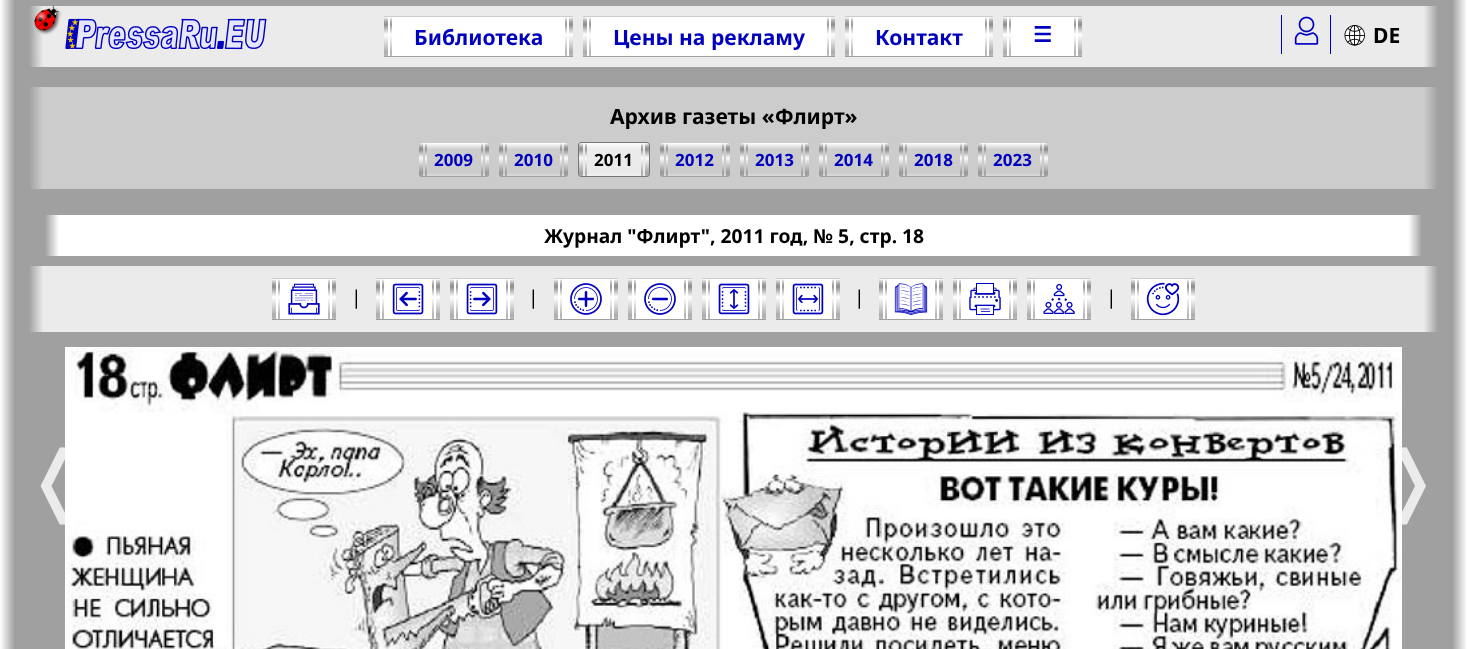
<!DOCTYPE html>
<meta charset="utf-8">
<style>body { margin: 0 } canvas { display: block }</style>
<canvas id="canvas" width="1467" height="649"></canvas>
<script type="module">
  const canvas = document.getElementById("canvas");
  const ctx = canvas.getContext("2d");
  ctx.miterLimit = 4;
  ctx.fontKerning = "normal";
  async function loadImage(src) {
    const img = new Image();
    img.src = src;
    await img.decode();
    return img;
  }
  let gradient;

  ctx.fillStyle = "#ffffff";
  ctx.fillRect(0, 0, 1467, 649);
  gradient = ctx.createLinearGradient(0, 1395, 1467, 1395);
  gradient.addColorStop(0, "#ffffff");
  gradient.addColorStop(0.01, "#a0a0a0");
  gradient.addColorStop(0.99, "#a0a0a0");
  gradient.addColorStop(1, "#ffffff");
  ctx.fillStyle = gradient;
  ctx.fillRect(0, 0, 1467, 649);
  gradient = ctx.createLinearGradient(29, 37, 1438, 36);
  gradient.addColorStop(0, "#a0a0a0");
  gradient.addColorStop(0.01, "#ebebeb");
  gradient.addColorStop(0.99, "#ebebeb");
  gradient.addColorStop(1, "#a0a0a0");
  ctx.fillStyle = gradient;
  ctx.fillRect(29, 6, 1409, 61);
  ctx.drawImage(await loadImage("img1.png"), 34, 5, 28, 30);
  ctx.drawImage(await loadImage("img2.png"), 64, 18, 203, 32);
  ctx.fillStyle = "#ffffff";
  ctx.fillRect(388, 17, 181, 39);
  gradient = ctx.createLinearGradient(566, 17, 566, 56);
  gradient.addColorStop(0, "#4b4b4b");
  gradient.addColorStop(0.45, "#ffffff");
  gradient.addColorStop(1, "#a5a5a5");
  ctx.fillStyle = gradient;
  ctx.fillRect(565, 17, 2, 39);
  gradient = ctx.createLinearGradient(391, 17, 391, 56);
  gradient.addColorStop(0, "#4b4b4b");
  gradient.addColorStop(0.45, "#ffffff");
  gradient.addColorStop(1, "#a5a5a5");
  ctx.fillStyle = gradient;
  ctx.fillRect(390, 17, 2, 39);
  gradient = ctx.createLinearGradient(571, 17, 571, 56);
  gradient.addColorStop(0, "#373737");
  gradient.addColorStop(0.45, "#ffffff");
  gradient.addColorStop(1, "#9b9b9b");
  ctx.fillStyle = gradient;
  ctx.fillRect(569, 17, 4, 39);
  gradient = ctx.createLinearGradient(386, 17, 386, 56);
  gradient.addColorStop(0, "#373737");
  gradient.addColorStop(0.45, "#ffffff");
  gradient.addColorStop(1, "#9b9b9b");
  ctx.fillStyle = gradient;
  ctx.fillRect(384, 17, 4, 39);
  gradient = ctx.createLinearGradient(479, 17, 479, 56);
  gradient.addColorStop(0, "#ffffff");
  gradient.addColorStop(0.2, "rgba(255, 255, 255, 0)");
  gradient.addColorStop(0.9, "rgba(255, 255, 255, 0)");
  gradient.addColorStop(1, "rgba(255, 255, 255, 0.3)");
  ctx.fillStyle = gradient;
  ctx.fillRect(384, 17, 189, 39);
  ctx.fillStyle = "#cccccc";
  ctx.fillRect(384, 16, 189, 1);
  ctx.fillStyle = "#a0a0a0";
  ctx.fillRect(384, 56, 189, 1);
  ctx.font = "bold 21.1px Noto Sans";
  ctx.fillStyle = "#0000be";
  ctx.fillText("Библиотека", 414, 45);
  ctx.fillStyle = "#ffffff";
  ctx.fillRect(587, 17, 244, 39);
  gradient = ctx.createLinearGradient(828, 17, 828, 56);
  gradient.addColorStop(0, "#4b4b4b");
  gradient.addColorStop(0.45, "#ffffff");
  gradient.addColorStop(1, "#a5a5a5");
  ctx.fillStyle = gradient;
  ctx.fillRect(827, 17, 2, 39);
  gradient = ctx.createLinearGradient(590, 17, 590, 56);
  gradient.addColorStop(0, "#4b4b4b");
  gradient.addColorStop(0.45, "#ffffff");
  gradient.addColorStop(1, "#a5a5a5");
  ctx.fillStyle = gradient;
  ctx.fillRect(589, 17, 2, 39);
  gradient = ctx.createLinearGradient(833, 17, 833, 56);
  gradient.addColorStop(0, "#373737");
  gradient.addColorStop(0.45, "#ffffff");
  gradient.addColorStop(1, "#9b9b9b");
  ctx.fillStyle = gradient;
  ctx.fillRect(831, 17, 4, 39);
  gradient = ctx.createLinearGradient(585, 17, 585, 56);
  gradient.addColorStop(0, "#373737");
  gradient.addColorStop(0.45, "#ffffff");
  gradient.addColorStop(1, "#9b9b9b");
  ctx.fillStyle = gradient;
  ctx.fillRect(583, 17, 4, 39);
  gradient = ctx.createLinearGradient(709, 17, 709, 56);
  gradient.addColorStop(0, "#ffffff");
  gradient.addColorStop(0.2, "rgba(255, 255, 255, 0)");
  gradient.addColorStop(0.9, "rgba(255, 255, 255, 0)");
  gradient.addColorStop(1, "rgba(255, 255, 255, 0.3)");
  ctx.fillStyle = gradient;
  ctx.fillRect(583, 17, 252, 39);
  ctx.fillStyle = "#cccccc";
  ctx.fillRect(583, 16, 252, 1);
  ctx.fillStyle = "#a0a0a0";
  ctx.fillRect(583, 56, 252, 1);
  ctx.fillStyle = "#0000be";
  ctx.fillText("Цены на рекламу", 613, 45);
  ctx.fillStyle = "#ffffff";
  ctx.fillRect(849, 17, 140, 39);
  gradient = ctx.createLinearGradient(986, 17, 986, 56);
  gradient.addColorStop(0, "#4b4b4b");
  gradient.addColorStop(0.45, "#ffffff");
  gradient.addColorStop(1, "#a5a5a5");
  ctx.fillStyle = gradient;
  ctx.fillRect(985, 17, 2, 39);
  gradient = ctx.createLinearGradient(852, 17, 852, 56);
  gradient.addColorStop(0, "#4b4b4b");
  gradient.addColorStop(0.45, "#ffffff");
  gradient.addColorStop(1, "#a5a5a5");
  ctx.fillStyle = gradient;
  ctx.fillRect(851, 17, 2, 39);
  gradient = ctx.createLinearGradient(991, 17, 991, 56);
  gradient.addColorStop(0, "#373737");
  gradient.addColorStop(0.45, "#ffffff");
  gradient.addColorStop(1, "#9b9b9b");
  ctx.fillStyle = gradient;
  ctx.fillRect(989, 17, 4, 39);
  gradient = ctx.createLinearGradient(847, 17, 847, 56);
  gradient.addColorStop(0, "#373737");
  gradient.addColorStop(0.45, "#ffffff");
  gradient.addColorStop(1, "#9b9b9b");
  ctx.fillStyle = gradient;
  ctx.fillRect(845, 17, 4, 39);
  gradient = ctx.createLinearGradient(919, 17, 919, 56);
  gradient.addColorStop(0, "#ffffff");
  gradient.addColorStop(0.2, "rgba(255, 255, 255, 0)");
  gradient.addColorStop(0.9, "rgba(255, 255, 255, 0)");
  gradient.addColorStop(1, "rgba(255, 255, 255, 0.3)");
  ctx.fillStyle = gradient;
  ctx.fillRect(845, 17, 148, 39);
  ctx.fillStyle = "#cccccc";
  ctx.fillRect(845, 16, 148, 1);
  ctx.fillStyle = "#a0a0a0";
  ctx.fillRect(845, 56, 148, 1);
  ctx.fillStyle = "#0000be";
  ctx.fillText("Контакт", 875, 45);
  ctx.fillStyle = "#ffffff";
  ctx.fillRect(1007, 17, 71, 39);
  gradient = ctx.createLinearGradient(1075, 17, 1075, 56);
  gradient.addColorStop(0, "#4b4b4b");
  gradient.addColorStop(0.45, "#ffffff");
  gradient.addColorStop(1, "#a5a5a5");
  ctx.fillStyle = gradient;
  ctx.fillRect(1074, 17, 2, 39);
  gradient = ctx.createLinearGradient(1010, 17, 1010, 56);
  gradient.addColorStop(0, "#4b4b4b");
  gradient.addColorStop(0.45, "#ffffff");
  gradient.addColorStop(1, "#a5a5a5");
  ctx.fillStyle = gradient;
  ctx.fillRect(1009, 17, 2, 39);
  gradient = ctx.createLinearGradient(1080, 17, 1080, 56);
  gradient.addColorStop(0, "#373737");
  gradient.addColorStop(0.45, "#ffffff");
  gradient.addColorStop(1, "#9b9b9b");
  ctx.fillStyle = gradient;
  ctx.fillRect(1078, 17, 4, 39);
  gradient = ctx.createLinearGradient(1005, 17, 1005, 56);
  gradient.addColorStop(0, "#373737");
  gradient.addColorStop(0.45, "#ffffff");
  gradient.addColorStop(1, "#9b9b9b");
  ctx.fillStyle = gradient;
  ctx.fillRect(1003, 17, 4, 39);
  gradient = ctx.createLinearGradient(1043, 17, 1043, 56);
  gradient.addColorStop(0, "#ffffff");
  gradient.addColorStop(0.2, "rgba(255, 255, 255, 0)");
  gradient.addColorStop(0.9, "rgba(255, 255, 255, 0)");
  gradient.addColorStop(1, "rgba(255, 255, 255, 0.3)");
  ctx.fillStyle = gradient;
  ctx.fillRect(1003, 17, 79, 39);
  ctx.fillStyle = "#cccccc";
  ctx.fillRect(1003, 16, 79, 1);
  ctx.fillStyle = "#a0a0a0";
  ctx.fillRect(1003, 56, 79, 1);
  ctx.font = "bold 21.1px DejaVu Sans";
  ctx.fillStyle = "#0000be";
  ctx.fillText("☰", 1033, 42);
  ctx.fillRect(1330, 15, 1, 39);
  ctx.fillRect(1281, 15, 1, 39);
  ctx.drawImage(await loadImage("img3.png"), 1294, 16, 25, 29);
  ctx.drawImage(await loadImage("img4.png"), 1344, 25, 21, 21);
  ctx.font = "bold 21.1px Noto Sans";
  ctx.fillStyle = "#000000";
  ctx.fillText("DE", 1373, 43);
  gradient = ctx.createLinearGradient(29, 138, 1438, 138);
  gradient.addColorStop(0, "#a0a0a0");
  gradient.addColorStop(0.01, "#cccccc");
  gradient.addColorStop(0.99, "#cccccc");
  gradient.addColorStop(1, "#a0a0a0");
  ctx.fillStyle = gradient;
  ctx.fillRect(30, 87, 1407, 102);
  ctx.fillStyle = "#000000";
  ctx.fillText("Архив газеты «Флирт»", 610, 124);
  gradient = ctx.createLinearGradient(482, 143, 482, 176);
  gradient.addColorStop(0, "#4b4b4b");
  gradient.addColorStop(0.45, "#fafafa");
  gradient.addColorStop(1, "#8c8c8c");
  ctx.fillStyle = gradient;
  ctx.fillRect(481, 143, 2, 33);
  gradient = ctx.createLinearGradient(426, 143, 426, 176);
  gradient.addColorStop(0, "#4b4b4b");
  gradient.addColorStop(0.45, "#fafafa");
  gradient.addColorStop(1, "#8c8c8c");
  ctx.fillStyle = gradient;
  ctx.fillRect(425, 143, 2, 33);
  ctx.save();
  ctx.beginPath();
  ctx.roundRect(419, 142, 70, 35, 3);
  ctx.clip();
  gradient = ctx.createLinearGradient(487, 143, 487, 176);
  gradient.addColorStop(0, "#373737");
  gradient.addColorStop(0.45, "#fafafa");
  gradient.addColorStop(1, "#828282");
  ctx.fillStyle = gradient;
  ctx.fillRect(485, 143, 4, 33);
  gradient = ctx.createLinearGradient(421, 143, 421, 176);
  gradient.addColorStop(0, "#373737");
  gradient.addColorStop(0.45, "#fafafa");
  gradient.addColorStop(1, "#828282");
  ctx.fillStyle = gradient;
  ctx.fillRect(419, 143, 4, 33);
  gradient = ctx.createLinearGradient(454, 143, 454, 176);
  gradient.addColorStop(0, "#ffffff");
  gradient.addColorStop(0.2, "rgba(255, 255, 255, 0)");
  gradient.addColorStop(0.9, "rgba(255, 255, 255, 0)");
  gradient.addColorStop(1, "rgba(255, 255, 255, 0.3)");
  ctx.fillStyle = gradient;
  ctx.fillRect(419, 143, 70, 33);
  ctx.restore();
  ctx.fillStyle = "#cccccc";
  ctx.beginPath();
  ctx.moveTo(422, 142);
  ctx.bezierCurveTo(420, 142, 419, 143, 419, 145);
  ctx.bezierCurveTo(419, 144, 420, 143, 422, 143);
  ctx.lineTo(486, 143);
  ctx.bezierCurveTo(488, 143, 489, 144, 489, 145);
  ctx.bezierCurveTo(489, 143, 488, 142, 486, 142);
  ctx.closePath();
  ctx.fill();
  ctx.fillStyle = "#a0a0a0";
  ctx.beginPath();
  ctx.moveTo(486, 177);
  ctx.bezierCurveTo(488, 177, 489, 176, 489, 174);
  ctx.bezierCurveTo(489, 175, 488, 176, 486, 176);
  ctx.lineTo(422, 176);
  ctx.bezierCurveTo(420, 176, 419, 175, 419, 174);
  ctx.bezierCurveTo(419, 176, 420, 177, 422, 177);
  ctx.closePath();
  ctx.fill();
  ctx.font = "bold 17px Noto Sans";
  ctx.fillStyle = "#0000be";
  ctx.fillText("2009", 434, 166);
  gradient = ctx.createLinearGradient(561, 143, 561, 176);
  gradient.addColorStop(0, "#4b4b4b");
  gradient.addColorStop(0.45, "#fafafa");
  gradient.addColorStop(1, "#8c8c8c");
  ctx.fillStyle = gradient;
  ctx.fillRect(560, 143, 2, 33);
  gradient = ctx.createLinearGradient(506, 143, 506, 176);
  gradient.addColorStop(0, "#4b4b4b");
  gradient.addColorStop(0.45, "#fafafa");
  gradient.addColorStop(1, "#8c8c8c");
  ctx.fillStyle = gradient;
  ctx.fillRect(505, 143, 2, 33);
  ctx.save();
  ctx.beginPath();
  ctx.roundRect(499, 142, 69, 35, 3);
  ctx.clip();
  gradient = ctx.createLinearGradient(566, 143, 566, 176);
  gradient.addColorStop(0, "#373737");
  gradient.addColorStop(0.45, "#fafafa");
  gradient.addColorStop(1, "#828282");
  ctx.fillStyle = gradient;
  ctx.fillRect(564, 143, 4, 33);
  gradient = ctx.createLinearGradient(501, 143, 501, 176);
  gradient.addColorStop(0, "#373737");
  gradient.addColorStop(0.45, "#fafafa");
  gradient.addColorStop(1, "#828282");
  ctx.fillStyle = gradient;
  ctx.fillRect(499, 143, 4, 33);
  gradient = ctx.createLinearGradient(534, 143, 534, 176);
  gradient.addColorStop(0, "#ffffff");
  gradient.addColorStop(0.2, "rgba(255, 255, 255, 0)");
  gradient.addColorStop(0.9, "rgba(255, 255, 255, 0)");
  gradient.addColorStop(1, "rgba(255, 255, 255, 0.3)");
  ctx.fillStyle = gradient;
  ctx.fillRect(499, 143, 69, 33);
  ctx.restore();
  ctx.fillStyle = "#cccccc";
  ctx.beginPath();
  ctx.moveTo(502, 142);
  ctx.bezierCurveTo(500, 142, 499, 143, 499, 145);
  ctx.bezierCurveTo(499, 144, 501, 143, 502, 143);
  ctx.lineTo(567, 143);
  ctx.lineTo(568, 145);
  ctx.bezierCurveTo(568, 143, 567, 142, 565, 142);
  ctx.closePath();
  ctx.fill();
  ctx.fillStyle = "#a0a0a0";
  ctx.beginPath();
  ctx.moveTo(565, 177);
  ctx.bezierCurveTo(567, 177, 568, 176, 568, 174);
  ctx.bezierCurveTo(568, 175, 566, 176, 565, 176);
  ctx.lineTo(500, 176);
  ctx.lineTo(499, 174);
  ctx.bezierCurveTo(499, 176, 500, 177, 502, 177);
  ctx.closePath();
  ctx.fill();
  ctx.fillStyle = "#0000be";
  ctx.fillText("2010", 514, 166);
  ctx.fillStyle = "#ebebeb";
  ctx.beginPath();
  ctx.roundRect(578, 142, 72, 35, 3);
  ctx.fill();
  gradient = ctx.createLinearGradient(642, 143, 642, 176);
  gradient.addColorStop(0, "#4b4b4b");
  gradient.addColorStop(0.45, "#fdfdfd");
  gradient.addColorStop(1, "#9b9b9b");
  ctx.fillStyle = gradient;
  ctx.fillRect(641, 143, 2, 33);
  gradient = ctx.createLinearGradient(586, 143, 586, 176);
  gradient.addColorStop(0, "#4b4b4b");
  gradient.addColorStop(0.45, "#fdfdfd");
  gradient.addColorStop(1, "#9b9b9b");
  ctx.fillStyle = gradient;
  ctx.fillRect(585, 143, 2, 33);
  gradient = ctx.createLinearGradient(647, 143, 647, 176);
  gradient.addColorStop(0, "#373737");
  gradient.addColorStop(0.45, "#fdfdfd");
  gradient.addColorStop(1, "#919191");
  ctx.fillStyle = gradient;
  ctx.fillRect(645, 143, 4, 33);
  gradient = ctx.createLinearGradient(581, 143, 581, 176);
  gradient.addColorStop(0, "#373737");
  gradient.addColorStop(0.45, "#fdfdfd");
  gradient.addColorStop(1, "#919191");
  ctx.fillStyle = gradient;
  ctx.fillRect(579, 143, 4, 33);
  gradient = ctx.createLinearGradient(614, 143, 614, 176);
  gradient.addColorStop(0, "#ffffff");
  gradient.addColorStop(0.2, "rgba(255, 255, 255, 0)");
  gradient.addColorStop(0.9, "rgba(255, 255, 255, 0)");
  gradient.addColorStop(1, "rgba(255, 255, 255, 0.3)");
  ctx.fillStyle = gradient;
  ctx.fillRect(579, 143, 70, 33);
  ctx.beginPath();
  ctx.roundRect(578.5, 142.5, 71, 34, 2.5);
  ctx.strokeStyle = "#777777";
  ctx.stroke();
  ctx.fillStyle = "#000000";
  ctx.fillText("2011", 594, 166);
  gradient = ctx.createLinearGradient(723, 143, 723, 176);
  gradient.addColorStop(0, "#4b4b4b");
  gradient.addColorStop(0.45, "#fafafa");
  gradient.addColorStop(1, "#8c8c8c");
  ctx.fillStyle = gradient;
  ctx.fillRect(722, 143, 2, 33);
  gradient = ctx.createLinearGradient(667, 143, 667, 176);
  gradient.addColorStop(0, "#4b4b4b");
  gradient.addColorStop(0.45, "#fafafa");
  gradient.addColorStop(1, "#8c8c8c");
  ctx.fillStyle = gradient;
  ctx.fillRect(666, 143, 2, 33);
  ctx.save();
  ctx.beginPath();
  ctx.roundRect(660, 142, 70, 35, 3);
  ctx.clip();
  gradient = ctx.createLinearGradient(728, 143, 728, 176);
  gradient.addColorStop(0, "#373737");
  gradient.addColorStop(0.45, "#fafafa");
  gradient.addColorStop(1, "#828282");
  ctx.fillStyle = gradient;
  ctx.fillRect(726, 143, 4, 33);
  gradient = ctx.createLinearGradient(662, 143, 662, 176);
  gradient.addColorStop(0, "#373737");
  gradient.addColorStop(0.45, "#fafafa");
  gradient.addColorStop(1, "#828282");
  ctx.fillStyle = gradient;
  ctx.fillRect(660, 143, 4, 33);
  gradient = ctx.createLinearGradient(695, 143, 695, 176);
  gradient.addColorStop(0, "#ffffff");
  gradient.addColorStop(0.2, "rgba(255, 255, 255, 0)");
  gradient.addColorStop(0.9, "rgba(255, 255, 255, 0)");
  gradient.addColorStop(1, "rgba(255, 255, 255, 0.3)");
  ctx.fillStyle = gradient;
  ctx.fillRect(660, 143, 70, 33);
  ctx.restore();
  ctx.fillStyle = "#cccccc";
  ctx.beginPath();
  ctx.moveTo(663, 142);
  ctx.bezierCurveTo(661, 142, 660, 143, 660, 145);
  ctx.bezierCurveTo(660, 144, 661, 143, 663, 143);
  ctx.lineTo(727, 143);
  ctx.bezierCurveTo(729, 143, 730, 144, 730, 145);
  ctx.bezierCurveTo(730, 143, 729, 142, 727, 142);
  ctx.closePath();
  ctx.fill();
  ctx.fillStyle = "#a0a0a0";
  ctx.beginPath();
  ctx.moveTo(727, 177);
  ctx.bezierCurveTo(729, 177, 730, 176, 730, 174);
  ctx.bezierCurveTo(730, 175, 729, 176, 727, 176);
  ctx.lineTo(663, 176);
  ctx.bezierCurveTo(661, 176, 660, 175, 660, 174);
  ctx.bezierCurveTo(660, 176, 661, 177, 663, 177);
  ctx.closePath();
  ctx.fill();
  ctx.fillStyle = "#0000be";
  ctx.fillText("2012", 675, 166);
  gradient = ctx.createLinearGradient(802, 143, 802, 176);
  gradient.addColorStop(0, "#4b4b4b");
  gradient.addColorStop(0.45, "#fafafa");
  gradient.addColorStop(1, "#8c8c8c");
  ctx.fillStyle = gradient;
  ctx.fillRect(801, 143, 2, 33);
  gradient = ctx.createLinearGradient(747, 143, 747, 176);
  gradient.addColorStop(0, "#4b4b4b");
  gradient.addColorStop(0.45, "#fafafa");
  gradient.addColorStop(1, "#8c8c8c");
  ctx.fillStyle = gradient;
  ctx.fillRect(746, 143, 2, 33);
  ctx.save();
  ctx.beginPath();
  ctx.roundRect(740, 142, 69, 35, 3);
  ctx.clip();
  gradient = ctx.createLinearGradient(807, 143, 807, 176);
  gradient.addColorStop(0, "#373737");
  gradient.addColorStop(0.45, "#fafafa");
  gradient.addColorStop(1, "#828282");
  ctx.fillStyle = gradient;
  ctx.fillRect(805, 143, 4, 33);
  gradient = ctx.createLinearGradient(742, 143, 742, 176);
  gradient.addColorStop(0, "#373737");
  gradient.addColorStop(0.45, "#fafafa");
  gradient.addColorStop(1, "#828282");
  ctx.fillStyle = gradient;
  ctx.fillRect(740, 143, 4, 33);
  gradient = ctx.createLinearGradient(775, 143, 775, 176);
  gradient.addColorStop(0, "#ffffff");
  gradient.addColorStop(0.2, "rgba(255, 255, 255, 0)");
  gradient.addColorStop(0.9, "rgba(255, 255, 255, 0)");
  gradient.addColorStop(1, "rgba(255, 255, 255, 0.3)");
  ctx.fillStyle = gradient;
  ctx.fillRect(740, 143, 69, 33);
  ctx.restore();
  ctx.fillStyle = "#cccccc";
  ctx.beginPath();
  ctx.moveTo(743, 142);
  ctx.bezierCurveTo(741, 142, 740, 143, 740, 145);
  ctx.bezierCurveTo(740, 144, 742, 143, 743, 143);
  ctx.lineTo(808, 143);
  ctx.lineTo(809, 145);
  ctx.bezierCurveTo(809, 143, 808, 142, 806, 142);
  ctx.closePath();
  ctx.fill();
  ctx.fillStyle = "#a0a0a0";
  ctx.beginPath();
  ctx.moveTo(806, 177);
  ctx.bezierCurveTo(808, 177, 809, 176, 809, 174);
  ctx.bezierCurveTo(809, 175, 807, 176, 806, 176);
  ctx.lineTo(741, 176);
  ctx.lineTo(740, 174);
  ctx.bezierCurveTo(740, 176, 741, 177, 743, 177);
  ctx.closePath();
  ctx.fill();
  ctx.fillStyle = "#0000be";
  ctx.fillText("2013", 755, 166);
  gradient = ctx.createLinearGradient(882, 143, 882, 176);
  gradient.addColorStop(0, "#4b4b4b");
  gradient.addColorStop(0.45, "#fafafa");
  gradient.addColorStop(1, "#8c8c8c");
  ctx.fillStyle = gradient;
  ctx.fillRect(881, 143, 2, 33);
  gradient = ctx.createLinearGradient(826, 143, 826, 176);
  gradient.addColorStop(0, "#4b4b4b");
  gradient.addColorStop(0.45, "#fafafa");
  gradient.addColorStop(1, "#8c8c8c");
  ctx.fillStyle = gradient;
  ctx.fillRect(825, 143, 2, 33);
  ctx.save();
  ctx.beginPath();
  ctx.roundRect(819, 142, 70, 35, 3);
  ctx.clip();
  gradient = ctx.createLinearGradient(887, 143, 887, 176);
  gradient.addColorStop(0, "#373737");
  gradient.addColorStop(0.45, "#fafafa");
  gradient.addColorStop(1, "#828282");
  ctx.fillStyle = gradient;
  ctx.fillRect(885, 143, 4, 33);
  gradient = ctx.createLinearGradient(821, 143, 821, 176);
  gradient.addColorStop(0, "#373737");
  gradient.addColorStop(0.45, "#fafafa");
  gradient.addColorStop(1, "#828282");
  ctx.fillStyle = gradient;
  ctx.fillRect(819, 143, 4, 33);
  gradient = ctx.createLinearGradient(854, 143, 854, 176);
  gradient.addColorStop(0, "#ffffff");
  gradient.addColorStop(0.2, "rgba(255, 255, 255, 0)");
  gradient.addColorStop(0.9, "rgba(255, 255, 255, 0)");
  gradient.addColorStop(1, "rgba(255, 255, 255, 0.3)");
  ctx.fillStyle = gradient;
  ctx.fillRect(819, 143, 70, 33);
  ctx.restore();
  ctx.fillStyle = "#cccccc";
  ctx.beginPath();
  ctx.moveTo(822, 142);
  ctx.bezierCurveTo(820, 142, 819, 143, 819, 145);
  ctx.bezierCurveTo(819, 144, 820, 143, 822, 143);
  ctx.lineTo(886, 143);
  ctx.bezierCurveTo(888, 143, 889, 144, 889, 145);
  ctx.bezierCurveTo(889, 143, 888, 142, 886, 142);
  ctx.closePath();
  ctx.fill();
  ctx.fillStyle = "#a0a0a0";
  ctx.beginPath();
  ctx.moveTo(886, 177);
  ctx.bezierCurveTo(888, 177, 889, 176, 889, 174);
  ctx.bezierCurveTo(889, 175, 888, 176, 886, 176);
  ctx.lineTo(822, 176);
  ctx.bezierCurveTo(820, 176, 819, 175, 819, 174);
  ctx.bezierCurveTo(819, 176, 820, 177, 822, 177);
  ctx.closePath();
  ctx.fill();
  ctx.fillStyle = "#0000be";
  ctx.fillText("2014", 834, 166);
  gradient = ctx.createLinearGradient(961, 143, 961, 176);
  gradient.addColorStop(0, "#4b4b4b");
  gradient.addColorStop(0.45, "#fafafa");
  gradient.addColorStop(1, "#8c8c8c");
  ctx.fillStyle = gradient;
  ctx.fillRect(960, 143, 2, 33);
  gradient = ctx.createLinearGradient(906, 143, 906, 176);
  gradient.addColorStop(0, "#4b4b4b");
  gradient.addColorStop(0.45, "#fafafa");
  gradient.addColorStop(1, "#8c8c8c");
  ctx.fillStyle = gradient;
  ctx.fillRect(905, 143, 2, 33);
  ctx.save();
  ctx.beginPath();
  ctx.roundRect(899, 142, 69, 35, 3);
  ctx.clip();
  gradient = ctx.createLinearGradient(966, 143, 966, 176);
  gradient.addColorStop(0, "#373737");
  gradient.addColorStop(0.45, "#fafafa");
  gradient.addColorStop(1, "#828282");
  ctx.fillStyle = gradient;
  ctx.fillRect(964, 143, 4, 33);
  gradient = ctx.createLinearGradient(901, 143, 901, 176);
  gradient.addColorStop(0, "#373737");
  gradient.addColorStop(0.45, "#fafafa");
  gradient.addColorStop(1, "#828282");
  ctx.fillStyle = gradient;
  ctx.fillRect(899, 143, 4, 33);
  gradient = ctx.createLinearGradient(934, 143, 934, 176);
  gradient.addColorStop(0, "#ffffff");
  gradient.addColorStop(0.2, "rgba(255, 255, 255, 0)");
  gradient.addColorStop(0.9, "rgba(255, 255, 255, 0)");
  gradient.addColorStop(1, "rgba(255, 255, 255, 0.3)");
  ctx.fillStyle = gradient;
  ctx.fillRect(899, 143, 69, 33);
  ctx.restore();
  ctx.fillStyle = "#cccccc";
  ctx.beginPath();
  ctx.moveTo(902, 142);
  ctx.bezierCurveTo(900, 142, 899, 143, 899, 145);
  ctx.bezierCurveTo(899, 144, 901, 143, 902, 143);
  ctx.lineTo(967, 143);
  ctx.lineTo(968, 145);
  ctx.bezierCurveTo(968, 143, 967, 142, 965, 142);
  ctx.closePath();
  ctx.fill();
  ctx.fillStyle = "#a0a0a0";
  ctx.beginPath();
  ctx.moveTo(965, 177);
  ctx.bezierCurveTo(967, 177, 968, 176, 968, 174);
  ctx.bezierCurveTo(968, 175, 966, 176, 965, 176);
  ctx.lineTo(900, 176);
  ctx.lineTo(899, 174);
  ctx.bezierCurveTo(899, 176, 900, 177, 902, 177);
  ctx.closePath();
  ctx.fill();
  ctx.fillStyle = "#0000be";
  ctx.fillText("2018", 914, 166);
  gradient = ctx.createLinearGradient(1041, 143, 1041, 176);
  gradient.addColorStop(0, "#4b4b4b");
  gradient.addColorStop(0.45, "#fafafa");
  gradient.addColorStop(1, "#8c8c8c");
  ctx.fillStyle = gradient;
  ctx.fillRect(1040, 143, 2, 33);
  gradient = ctx.createLinearGradient(985, 143, 985, 176);
  gradient.addColorStop(0, "#4b4b4b");
  gradient.addColorStop(0.45, "#fafafa");
  gradient.addColorStop(1, "#8c8c8c");
  ctx.fillStyle = gradient;
  ctx.fillRect(984, 143, 2, 33);
  ctx.save();
  ctx.beginPath();
  ctx.roundRect(978, 142, 70, 35, 3);
  ctx.clip();
  gradient = ctx.createLinearGradient(1046, 143, 1046, 176);
  gradient.addColorStop(0, "#373737");
  gradient.addColorStop(0.45, "#fafafa");
  gradient.addColorStop(1, "#828282");
  ctx.fillStyle = gradient;
  ctx.fillRect(1044, 143, 4, 33);
  gradient = ctx.createLinearGradient(980, 143, 980, 176);
  gradient.addColorStop(0, "#373737");
  gradient.addColorStop(0.45, "#fafafa");
  gradient.addColorStop(1, "#828282");
  ctx.fillStyle = gradient;
  ctx.fillRect(978, 143, 4, 33);
  gradient = ctx.createLinearGradient(1013, 143, 1013, 176);
  gradient.addColorStop(0, "#ffffff");
  gradient.addColorStop(0.2, "rgba(255, 255, 255, 0)");
  gradient.addColorStop(0.9, "rgba(255, 255, 255, 0)");
  gradient.addColorStop(1, "rgba(255, 255, 255, 0.3)");
  ctx.fillStyle = gradient;
  ctx.fillRect(978, 143, 70, 33);
  ctx.restore();
  ctx.fillStyle = "#cccccc";
  ctx.beginPath();
  ctx.moveTo(981, 142);
  ctx.bezierCurveTo(979, 142, 978, 143, 978, 145);
  ctx.bezierCurveTo(978, 144, 979, 143, 981, 143);
  ctx.lineTo(1045, 143);
  ctx.bezierCurveTo(1047, 143, 1048, 144, 1048, 145);
  ctx.bezierCurveTo(1048, 143, 1047, 142, 1045, 142);
  ctx.closePath();
  ctx.fill();
  ctx.fillStyle = "#a0a0a0";
  ctx.beginPath();
  ctx.moveTo(1045, 177);
  ctx.bezierCurveTo(1047, 177, 1048, 176, 1048, 174);
  ctx.bezierCurveTo(1048, 175, 1047, 176, 1045, 176);
  ctx.lineTo(981, 176);
  ctx.bezierCurveTo(979, 176, 978, 175, 978, 174);
  ctx.bezierCurveTo(978, 176, 979, 177, 981, 177);
  ctx.closePath();
  ctx.fill();
  ctx.fillStyle = "#0000be";
  ctx.fillText("2023", 993, 166);
  gradient = ctx.createLinearGradient(45, 236, 1422, 235);
  gradient.addColorStop(0, "#a0a0a0");
  gradient.addColorStop(0.01, "#ffffff");
  gradient.addColorStop(0.99, "#ffffff");
  gradient.addColorStop(1, "#a0a0a0");
  ctx.fillStyle = gradient;
  ctx.fillRect(45, 215, 1377, 41);
  ctx.font = "bold 19.25px Noto Sans";
  ctx.fillStyle = "#000000";
  ctx.fillText("Журнал \"Флирт\", 2011 год, № 5, стр. 18", 544, 243);
  gradient = ctx.createLinearGradient(29, 299, 1438, 299);
  gradient.addColorStop(0, "#a0a0a0");
  gradient.addColorStop(0.01, "#ebebeb");
  gradient.addColorStop(0.99, "#ebebeb");
  gradient.addColorStop(1, "#a0a0a0");
  ctx.fillStyle = gradient;
  ctx.fillRect(29, 266, 1409, 66);
  ctx.fillStyle = "#ffffff";
  ctx.fillRect(276, 279, 56, 40);
  gradient = ctx.createLinearGradient(329, 279, 329, 319);
  gradient.addColorStop(0, "#4b4b4b");
  gradient.addColorStop(0.45, "#ffffff");
  gradient.addColorStop(1, "#a5a5a5");
  ctx.fillStyle = gradient;
  ctx.fillRect(328, 279, 2, 40);
  gradient = ctx.createLinearGradient(279, 279, 279, 319);
  gradient.addColorStop(0, "#4b4b4b");
  gradient.addColorStop(0.45, "#ffffff");
  gradient.addColorStop(1, "#a5a5a5");
  ctx.fillStyle = gradient;
  ctx.fillRect(278, 279, 2, 40);
  gradient = ctx.createLinearGradient(334, 279, 334, 319);
  gradient.addColorStop(0, "#373737");
  gradient.addColorStop(0.45, "#ffffff");
  gradient.addColorStop(1, "#9b9b9b");
  ctx.fillStyle = gradient;
  ctx.fillRect(332, 279, 4, 40);
  gradient = ctx.createLinearGradient(274, 279, 274, 319);
  gradient.addColorStop(0, "#373737");
  gradient.addColorStop(0.45, "#ffffff");
  gradient.addColorStop(1, "#9b9b9b");
  ctx.fillStyle = gradient;
  ctx.fillRect(272, 279, 4, 40);
  gradient = ctx.createLinearGradient(304, 279, 304, 319);
  gradient.addColorStop(0, "#ffffff");
  gradient.addColorStop(0.2, "rgba(255, 255, 255, 0)");
  gradient.addColorStop(0.9, "rgba(255, 255, 255, 0)");
  gradient.addColorStop(1, "rgba(255, 255, 255, 0.3)");
  ctx.fillStyle = gradient;
  ctx.fillRect(272, 279, 64, 40);
  ctx.fillStyle = "#cccccc";
  ctx.fillRect(272, 278, 64, 1);
  ctx.fillStyle = "#a0a0a0";
  ctx.fillRect(272, 319, 64, 1);
  ctx.drawImage(await loadImage("img5.png"), 288, 283, 32, 32);
  ctx.font = "19.25px Noto Sans";
  ctx.fillStyle = "#000000";
  ctx.fillText("|", 351, 304);
  ctx.fillStyle = "#ffffff";
  ctx.fillRect(380, 279, 56, 40);
  gradient = ctx.createLinearGradient(433, 279, 433, 319);
  gradient.addColorStop(0, "#4b4b4b");
  gradient.addColorStop(0.45, "#ffffff");
  gradient.addColorStop(1, "#a5a5a5");
  ctx.fillStyle = gradient;
  ctx.fillRect(432, 279, 2, 40);
  gradient = ctx.createLinearGradient(383, 279, 383, 319);
  gradient.addColorStop(0, "#4b4b4b");
  gradient.addColorStop(0.45, "#ffffff");
  gradient.addColorStop(1, "#a5a5a5");
  ctx.fillStyle = gradient;
  ctx.fillRect(382, 279, 2, 40);
  gradient = ctx.createLinearGradient(438, 279, 438, 319);
  gradient.addColorStop(0, "#373737");
  gradient.addColorStop(0.45, "#ffffff");
  gradient.addColorStop(1, "#9b9b9b");
  ctx.fillStyle = gradient;
  ctx.fillRect(436, 279, 4, 40);
  gradient = ctx.createLinearGradient(378, 279, 378, 319);
  gradient.addColorStop(0, "#373737");
  gradient.addColorStop(0.45, "#ffffff");
  gradient.addColorStop(1, "#9b9b9b");
  ctx.fillStyle = gradient;
  ctx.fillRect(376, 279, 4, 40);
  gradient = ctx.createLinearGradient(408, 279, 408, 319);
  gradient.addColorStop(0, "#ffffff");
  gradient.addColorStop(0.2, "rgba(255, 255, 255, 0)");
  gradient.addColorStop(0.9, "rgba(255, 255, 255, 0)");
  gradient.addColorStop(1, "rgba(255, 255, 255, 0.3)");
  ctx.fillStyle = gradient;
  ctx.fillRect(376, 279, 64, 40);
  ctx.fillStyle = "#cccccc";
  ctx.fillRect(376, 278, 64, 1);
  ctx.fillStyle = "#a0a0a0";
  ctx.fillRect(376, 319, 64, 1);
  ctx.drawImage(await loadImage("img6.png"), 392, 283, 32, 32);
  ctx.fillStyle = "#ffffff";
  ctx.fillRect(454, 279, 56, 40);
  gradient = ctx.createLinearGradient(507, 279, 507, 319);
  gradient.addColorStop(0, "#4b4b4b");
  gradient.addColorStop(0.45, "#ffffff");
  gradient.addColorStop(1, "#a5a5a5");
  ctx.fillStyle = gradient;
  ctx.fillRect(506, 279, 2, 40);
  gradient = ctx.createLinearGradient(457, 279, 457, 319);
  gradient.addColorStop(0, "#4b4b4b");
  gradient.addColorStop(0.45, "#ffffff");
  gradient.addColorStop(1, "#a5a5a5");
  ctx.fillStyle = gradient;
  ctx.fillRect(456, 279, 2, 40);
  gradient = ctx.createLinearGradient(512, 279, 512, 319);
  gradient.addColorStop(0, "#373737");
  gradient.addColorStop(0.45, "#ffffff");
  gradient.addColorStop(1, "#9b9b9b");
  ctx.fillStyle = gradient;
  ctx.fillRect(510, 279, 4, 40);
  gradient = ctx.createLinearGradient(452, 279, 452, 319);
  gradient.addColorStop(0, "#373737");
  gradient.addColorStop(0.45, "#ffffff");
  gradient.addColorStop(1, "#9b9b9b");
  ctx.fillStyle = gradient;
  ctx.fillRect(450, 279, 4, 40);
  gradient = ctx.createLinearGradient(482, 279, 482, 319);
  gradient.addColorStop(0, "#ffffff");
  gradient.addColorStop(0.2, "rgba(255, 255, 255, 0)");
  gradient.addColorStop(0.9, "rgba(255, 255, 255, 0)");
  gradient.addColorStop(1, "rgba(255, 255, 255, 0.3)");
  ctx.fillStyle = gradient;
  ctx.fillRect(450, 279, 64, 40);
  ctx.fillStyle = "#cccccc";
  ctx.fillRect(450, 278, 64, 1);
  ctx.fillStyle = "#a0a0a0";
  ctx.fillRect(450, 319, 64, 1);
  ctx.drawImage(await loadImage("img7.png"), 466, 283, 32, 32);
  ctx.fillStyle = "#000000";
  ctx.fillText("|", 528, 304);
  ctx.fillStyle = "#ffffff";
  ctx.fillRect(558, 279, 56, 40);
  gradient = ctx.createLinearGradient(611, 279, 611, 319);
  gradient.addColorStop(0, "#4b4b4b");
  gradient.addColorStop(0.45, "#ffffff");
  gradient.addColorStop(1, "#a5a5a5");
  ctx.fillStyle = gradient;
  ctx.fillRect(610, 279, 2, 40);
  gradient = ctx.createLinearGradient(561, 279, 561, 319);
  gradient.addColorStop(0, "#4b4b4b");
  gradient.addColorStop(0.45, "#ffffff");
  gradient.addColorStop(1, "#a5a5a5");
  ctx.fillStyle = gradient;
  ctx.fillRect(560, 279, 2, 40);
  gradient = ctx.createLinearGradient(616, 279, 616, 319);
  gradient.addColorStop(0, "#373737");
  gradient.addColorStop(0.45, "#ffffff");
  gradient.addColorStop(1, "#9b9b9b");
  ctx.fillStyle = gradient;
  ctx.fillRect(614, 279, 4, 40);
  gradient = ctx.createLinearGradient(556, 279, 556, 319);
  gradient.addColorStop(0, "#373737");
  gradient.addColorStop(0.45, "#ffffff");
  gradient.addColorStop(1, "#9b9b9b");
  ctx.fillStyle = gradient;
  ctx.fillRect(554, 279, 4, 40);
  gradient = ctx.createLinearGradient(586, 279, 586, 319);
  gradient.addColorStop(0, "#ffffff");
  gradient.addColorStop(0.2, "rgba(255, 255, 255, 0)");
  gradient.addColorStop(0.9, "rgba(255, 255, 255, 0)");
  gradient.addColorStop(1, "rgba(255, 255, 255, 0.3)");
  ctx.fillStyle = gradient;
  ctx.fillRect(554, 279, 64, 40);
  ctx.fillStyle = "#cccccc";
  ctx.fillRect(554, 278, 64, 1);
  ctx.fillStyle = "#a0a0a0";
  ctx.fillRect(554, 319, 64, 1);
  ctx.drawImage(await loadImage("img8.png"), 570, 283, 32, 32);
  ctx.fillStyle = "#ffffff";
  ctx.fillRect(632, 279, 56, 40);
  gradient = ctx.createLinearGradient(685, 279, 685, 319);
  gradient.addColorStop(0, "#4b4b4b");
  gradient.addColorStop(0.45, "#ffffff");
  gradient.addColorStop(1, "#a5a5a5");
  ctx.fillStyle = gradient;
  ctx.fillRect(684, 279, 2, 40);
  gradient = ctx.createLinearGradient(635, 279, 635, 319);
  gradient.addColorStop(0, "#4b4b4b");
  gradient.addColorStop(0.45, "#ffffff");
  gradient.addColorStop(1, "#a5a5a5");
  ctx.fillStyle = gradient;
  ctx.fillRect(634, 279, 2, 40);
  gradient = ctx.createLinearGradient(690, 279, 690, 319);
  gradient.addColorStop(0, "#373737");
  gradient.addColorStop(0.45, "#ffffff");
  gradient.addColorStop(1, "#9b9b9b");
  ctx.fillStyle = gradient;
  ctx.fillRect(688, 279, 4, 40);
  gradient = ctx.createLinearGradient(630, 279, 630, 319);
  gradient.addColorStop(0, "#373737");
  gradient.addColorStop(0.45, "#ffffff");
  gradient.addColorStop(1, "#9b9b9b");
  ctx.fillStyle = gradient;
  ctx.fillRect(628, 279, 4, 40);
  gradient = ctx.createLinearGradient(660, 279, 660, 319);
  gradient.addColorStop(0, "#ffffff");
  gradient.addColorStop(0.2, "rgba(255, 255, 255, 0)");
  gradient.addColorStop(0.9, "rgba(255, 255, 255, 0)");
  gradient.addColorStop(1, "rgba(255, 255, 255, 0.3)");
  ctx.fillStyle = gradient;
  ctx.fillRect(628, 279, 64, 40);
  ctx.fillStyle = "#cccccc";
  ctx.fillRect(628, 278, 64, 1);
  ctx.fillStyle = "#a0a0a0";
  ctx.fillRect(628, 319, 64, 1);
  ctx.drawImage(await loadImage("img9.png"), 644, 283, 32, 32);
  ctx.fillStyle = "#ffffff";
  ctx.fillRect(706, 279, 56, 40);
  gradient = ctx.createLinearGradient(759, 279, 759, 319);
  gradient.addColorStop(0, "#4b4b4b");
  gradient.addColorStop(0.45, "#ffffff");
  gradient.addColorStop(1, "#a5a5a5");
  ctx.fillStyle = gradient;
  ctx.fillRect(758, 279, 2, 40);
  gradient = ctx.createLinearGradient(709, 279, 709, 319);
  gradient.addColorStop(0, "#4b4b4b");
  gradient.addColorStop(0.45, "#ffffff");
  gradient.addColorStop(1, "#a5a5a5");
  ctx.fillStyle = gradient;
  ctx.fillRect(708, 279, 2, 40);
  gradient = ctx.createLinearGradient(764, 279, 764, 319);
  gradient.addColorStop(0, "#373737");
  gradient.addColorStop(0.45, "#ffffff");
  gradient.addColorStop(1, "#9b9b9b");
  ctx.fillStyle = gradient;
  ctx.fillRect(762, 279, 4, 40);
  gradient = ctx.createLinearGradient(704, 279, 704, 319);
  gradient.addColorStop(0, "#373737");
  gradient.addColorStop(0.45, "#ffffff");
  gradient.addColorStop(1, "#9b9b9b");
  ctx.fillStyle = gradient;
  ctx.fillRect(702, 279, 4, 40);
  gradient = ctx.createLinearGradient(734, 279, 734, 319);
  gradient.addColorStop(0, "#ffffff");
  gradient.addColorStop(0.2, "rgba(255, 255, 255, 0)");
  gradient.addColorStop(0.9, "rgba(255, 255, 255, 0)");
  gradient.addColorStop(1, "rgba(255, 255, 255, 0.3)");
  ctx.fillStyle = gradient;
  ctx.fillRect(702, 279, 64, 40);
  ctx.fillStyle = "#cccccc";
  ctx.fillRect(702, 278, 64, 1);
  ctx.fillStyle = "#a0a0a0";
  ctx.fillRect(702, 319, 64, 1);
  ctx.drawImage(await loadImage("img10.png"), 718, 283, 32, 32);
  ctx.fillStyle = "#ffffff";
  ctx.fillRect(780, 279, 56, 40);
  gradient = ctx.createLinearGradient(833, 279, 833, 319);
  gradient.addColorStop(0, "#4b4b4b");
  gradient.addColorStop(0.45, "#ffffff");
  gradient.addColorStop(1, "#a5a5a5");
  ctx.fillStyle = gradient;
  ctx.fillRect(832, 279, 2, 40);
  gradient = ctx.createLinearGradient(783, 279, 783, 319);
  gradient.addColorStop(0, "#4b4b4b");
  gradient.addColorStop(0.45, "#ffffff");
  gradient.addColorStop(1, "#a5a5a5");
  ctx.fillStyle = gradient;
  ctx.fillRect(782, 279, 2, 40);
  gradient = ctx.createLinearGradient(838, 279, 838, 319);
  gradient.addColorStop(0, "#373737");
  gradient.addColorStop(0.45, "#ffffff");
  gradient.addColorStop(1, "#9b9b9b");
  ctx.fillStyle = gradient;
  ctx.fillRect(836, 279, 4, 40);
  gradient = ctx.createLinearGradient(778, 279, 778, 319);
  gradient.addColorStop(0, "#373737");
  gradient.addColorStop(0.45, "#ffffff");
  gradient.addColorStop(1, "#9b9b9b");
  ctx.fillStyle = gradient;
  ctx.fillRect(776, 279, 4, 40);
  gradient = ctx.createLinearGradient(808, 279, 808, 319);
  gradient.addColorStop(0, "#ffffff");
  gradient.addColorStop(0.2, "rgba(255, 255, 255, 0)");
  gradient.addColorStop(0.9, "rgba(255, 255, 255, 0)");
  gradient.addColorStop(1, "rgba(255, 255, 255, 0.3)");
  ctx.fillStyle = gradient;
  ctx.fillRect(776, 279, 64, 40);
  ctx.fillStyle = "#cccccc";
  ctx.fillRect(776, 278, 64, 1);
  ctx.fillStyle = "#a0a0a0";
  ctx.fillRect(776, 319, 64, 1);
  ctx.drawImage(await loadImage("img11.png"), 792, 283, 32, 32);
  ctx.fillStyle = "#000000";
  ctx.fillText("|", 854, 304);
  ctx.fillStyle = "#ffffff";
  ctx.fillRect(883, 279, 56, 40);
  gradient = ctx.createLinearGradient(936, 279, 936, 319);
  gradient.addColorStop(0, "#4b4b4b");
  gradient.addColorStop(0.45, "#ffffff");
  gradient.addColorStop(1, "#a5a5a5");
  ctx.fillStyle = gradient;
  ctx.fillRect(935, 279, 2, 40);
  gradient = ctx.createLinearGradient(886, 279, 886, 319);
  gradient.addColorStop(0, "#4b4b4b");
  gradient.addColorStop(0.45, "#ffffff");
  gradient.addColorStop(1, "#a5a5a5");
  ctx.fillStyle = gradient;
  ctx.fillRect(885, 279, 2, 40);
  gradient = ctx.createLinearGradient(941, 279, 941, 319);
  gradient.addColorStop(0, "#373737");
  gradient.addColorStop(0.45, "#ffffff");
  gradient.addColorStop(1, "#9b9b9b");
  ctx.fillStyle = gradient;
  ctx.fillRect(939, 279, 4, 40);
  gradient = ctx.createLinearGradient(881, 279, 881, 319);
  gradient.addColorStop(0, "#373737");
  gradient.addColorStop(0.45, "#ffffff");
  gradient.addColorStop(1, "#9b9b9b");
  ctx.fillStyle = gradient;
  ctx.fillRect(879, 279, 4, 40);
  gradient = ctx.createLinearGradient(911, 279, 911, 319);
  gradient.addColorStop(0, "#ffffff");
  gradient.addColorStop(0.2, "rgba(255, 255, 255, 0)");
  gradient.addColorStop(0.9, "rgba(255, 255, 255, 0)");
  gradient.addColorStop(1, "rgba(255, 255, 255, 0.3)");
  ctx.fillStyle = gradient;
  ctx.fillRect(879, 279, 64, 40);
  ctx.fillStyle = "#cccccc";
  ctx.fillRect(879, 278, 64, 1);
  ctx.fillStyle = "#a0a0a0";
  ctx.fillRect(879, 319, 64, 1);
  ctx.drawImage(await loadImage("img12.png"), 894, 283, 34, 32);
  ctx.fillStyle = "#ffffff";
  ctx.fillRect(957, 279, 56, 40);
  gradient = ctx.createLinearGradient(1010, 279, 1010, 319);
  gradient.addColorStop(0, "#4b4b4b");
  gradient.addColorStop(0.45, "#ffffff");
  gradient.addColorStop(1, "#a5a5a5");
  ctx.fillStyle = gradient;
  ctx.fillRect(1009, 279, 2, 40);
  gradient = ctx.createLinearGradient(960, 279, 960, 319);
  gradient.addColorStop(0, "#4b4b4b");
  gradient.addColorStop(0.45, "#ffffff");
  gradient.addColorStop(1, "#a5a5a5");
  ctx.fillStyle = gradient;
  ctx.fillRect(959, 279, 2, 40);
  gradient = ctx.createLinearGradient(1015, 279, 1015, 319);
  gradient.addColorStop(0, "#373737");
  gradient.addColorStop(0.45, "#ffffff");
  gradient.addColorStop(1, "#9b9b9b");
  ctx.fillStyle = gradient;
  ctx.fillRect(1013, 279, 4, 40);
  gradient = ctx.createLinearGradient(955, 279, 955, 319);
  gradient.addColorStop(0, "#373737");
  gradient.addColorStop(0.45, "#ffffff");
  gradient.addColorStop(1, "#9b9b9b");
  ctx.fillStyle = gradient;
  ctx.fillRect(953, 279, 4, 40);
  gradient = ctx.createLinearGradient(985, 279, 985, 319);
  gradient.addColorStop(0, "#ffffff");
  gradient.addColorStop(0.2, "rgba(255, 255, 255, 0)");
  gradient.addColorStop(0.9, "rgba(255, 255, 255, 0)");
  gradient.addColorStop(1, "rgba(255, 255, 255, 0.3)");
  ctx.fillStyle = gradient;
  ctx.fillRect(953, 279, 64, 40);
  ctx.fillStyle = "#cccccc";
  ctx.fillRect(953, 278, 64, 1);
  ctx.fillStyle = "#a0a0a0";
  ctx.fillRect(953, 319, 64, 1);
  ctx.drawImage(await loadImage("img13.png"), 969, 283, 32, 32);
  ctx.fillStyle = "#ffffff";
  ctx.fillRect(1031, 279, 56, 40);
  gradient = ctx.createLinearGradient(1084, 279, 1084, 319);
  gradient.addColorStop(0, "#4b4b4b");
  gradient.addColorStop(0.45, "#ffffff");
  gradient.addColorStop(1, "#a5a5a5");
  ctx.fillStyle = gradient;
  ctx.fillRect(1083, 279, 2, 40);
  gradient = ctx.createLinearGradient(1034, 279, 1034, 319);
  gradient.addColorStop(0, "#4b4b4b");
  gradient.addColorStop(0.45, "#ffffff");
  gradient.addColorStop(1, "#a5a5a5");
  ctx.fillStyle = gradient;
  ctx.fillRect(1033, 279, 2, 40);
  gradient = ctx.createLinearGradient(1089, 279, 1089, 319);
  gradient.addColorStop(0, "#373737");
  gradient.addColorStop(0.45, "#ffffff");
  gradient.addColorStop(1, "#9b9b9b");
  ctx.fillStyle = gradient;
  ctx.fillRect(1087, 279, 4, 40);
  gradient = ctx.createLinearGradient(1029, 279, 1029, 319);
  gradient.addColorStop(0, "#373737");
  gradient.addColorStop(0.45, "#ffffff");
  gradient.addColorStop(1, "#9b9b9b");
  ctx.fillStyle = gradient;
  ctx.fillRect(1027, 279, 4, 40);
  gradient = ctx.createLinearGradient(1059, 279, 1059, 319);
  gradient.addColorStop(0, "#ffffff");
  gradient.addColorStop(0.2, "rgba(255, 255, 255, 0)");
  gradient.addColorStop(0.9, "rgba(255, 255, 255, 0)");
  gradient.addColorStop(1, "rgba(255, 255, 255, 0.3)");
  ctx.fillStyle = gradient;
  ctx.fillRect(1027, 279, 64, 40);
  ctx.fillStyle = "#cccccc";
  ctx.fillRect(1027, 278, 64, 1);
  ctx.fillStyle = "#a0a0a0";
  ctx.fillRect(1027, 319, 64, 1);
  ctx.drawImage(await loadImage("img14.png"), 1043, 283, 32, 31);
  ctx.fillStyle = "#000000";
  ctx.fillText("|", 1106, 304);
  ctx.fillStyle = "#ffffff";
  ctx.fillRect(1135, 279, 56, 40);
  gradient = ctx.createLinearGradient(1188, 279, 1188, 319);
  gradient.addColorStop(0, "#4b4b4b");
  gradient.addColorStop(0.45, "#ffffff");
  gradient.addColorStop(1, "#a5a5a5");
  ctx.fillStyle = gradient;
  ctx.fillRect(1187, 279, 2, 40);
  gradient = ctx.createLinearGradient(1138, 279, 1138, 319);
  gradient.addColorStop(0, "#4b4b4b");
  gradient.addColorStop(0.45, "#ffffff");
  gradient.addColorStop(1, "#a5a5a5");
  ctx.fillStyle = gradient;
  ctx.fillRect(1137, 279, 2, 40);
  gradient = ctx.createLinearGradient(1193, 279, 1193, 319);
  gradient.addColorStop(0, "#373737");
  gradient.addColorStop(0.45, "#ffffff");
  gradient.addColorStop(1, "#9b9b9b");
  ctx.fillStyle = gradient;
  ctx.fillRect(1191, 279, 4, 40);
  gradient = ctx.createLinearGradient(1133, 279, 1133, 319);
  gradient.addColorStop(0, "#373737");
  gradient.addColorStop(0.45, "#ffffff");
  gradient.addColorStop(1, "#9b9b9b");
  ctx.fillStyle = gradient;
  ctx.fillRect(1131, 279, 4, 40);
  gradient = ctx.createLinearGradient(1163, 279, 1163, 319);
  gradient.addColorStop(0, "#ffffff");
  gradient.addColorStop(0.2, "rgba(255, 255, 255, 0)");
  gradient.addColorStop(0.9, "rgba(255, 255, 255, 0)");
  gradient.addColorStop(1, "rgba(255, 255, 255, 0.3)");
  ctx.fillStyle = gradient;
  ctx.fillRect(1131, 279, 64, 40);
  ctx.fillStyle = "#cccccc";
  ctx.fillRect(1131, 278, 64, 1);
  ctx.fillStyle = "#a0a0a0";
  ctx.fillRect(1131, 319, 64, 1);
  ctx.drawImage(await loadImage("img15.png"), 1146, 282, 34, 34);
  ctx.font = "77px DejaVu Sans";
  ctx.fillStyle = "#ebebeb";
  ctx.fillText("❬", 24, 506);
  ctx.fillText("❭", 1378, 506);
  ctx.fillStyle = "#ffffff";
  ctx.fillRect(65, 347, 1337, 302);
  ctx.drawImage(await loadImage("img16.png"), 66, 348, 1335, 301);
</script>
